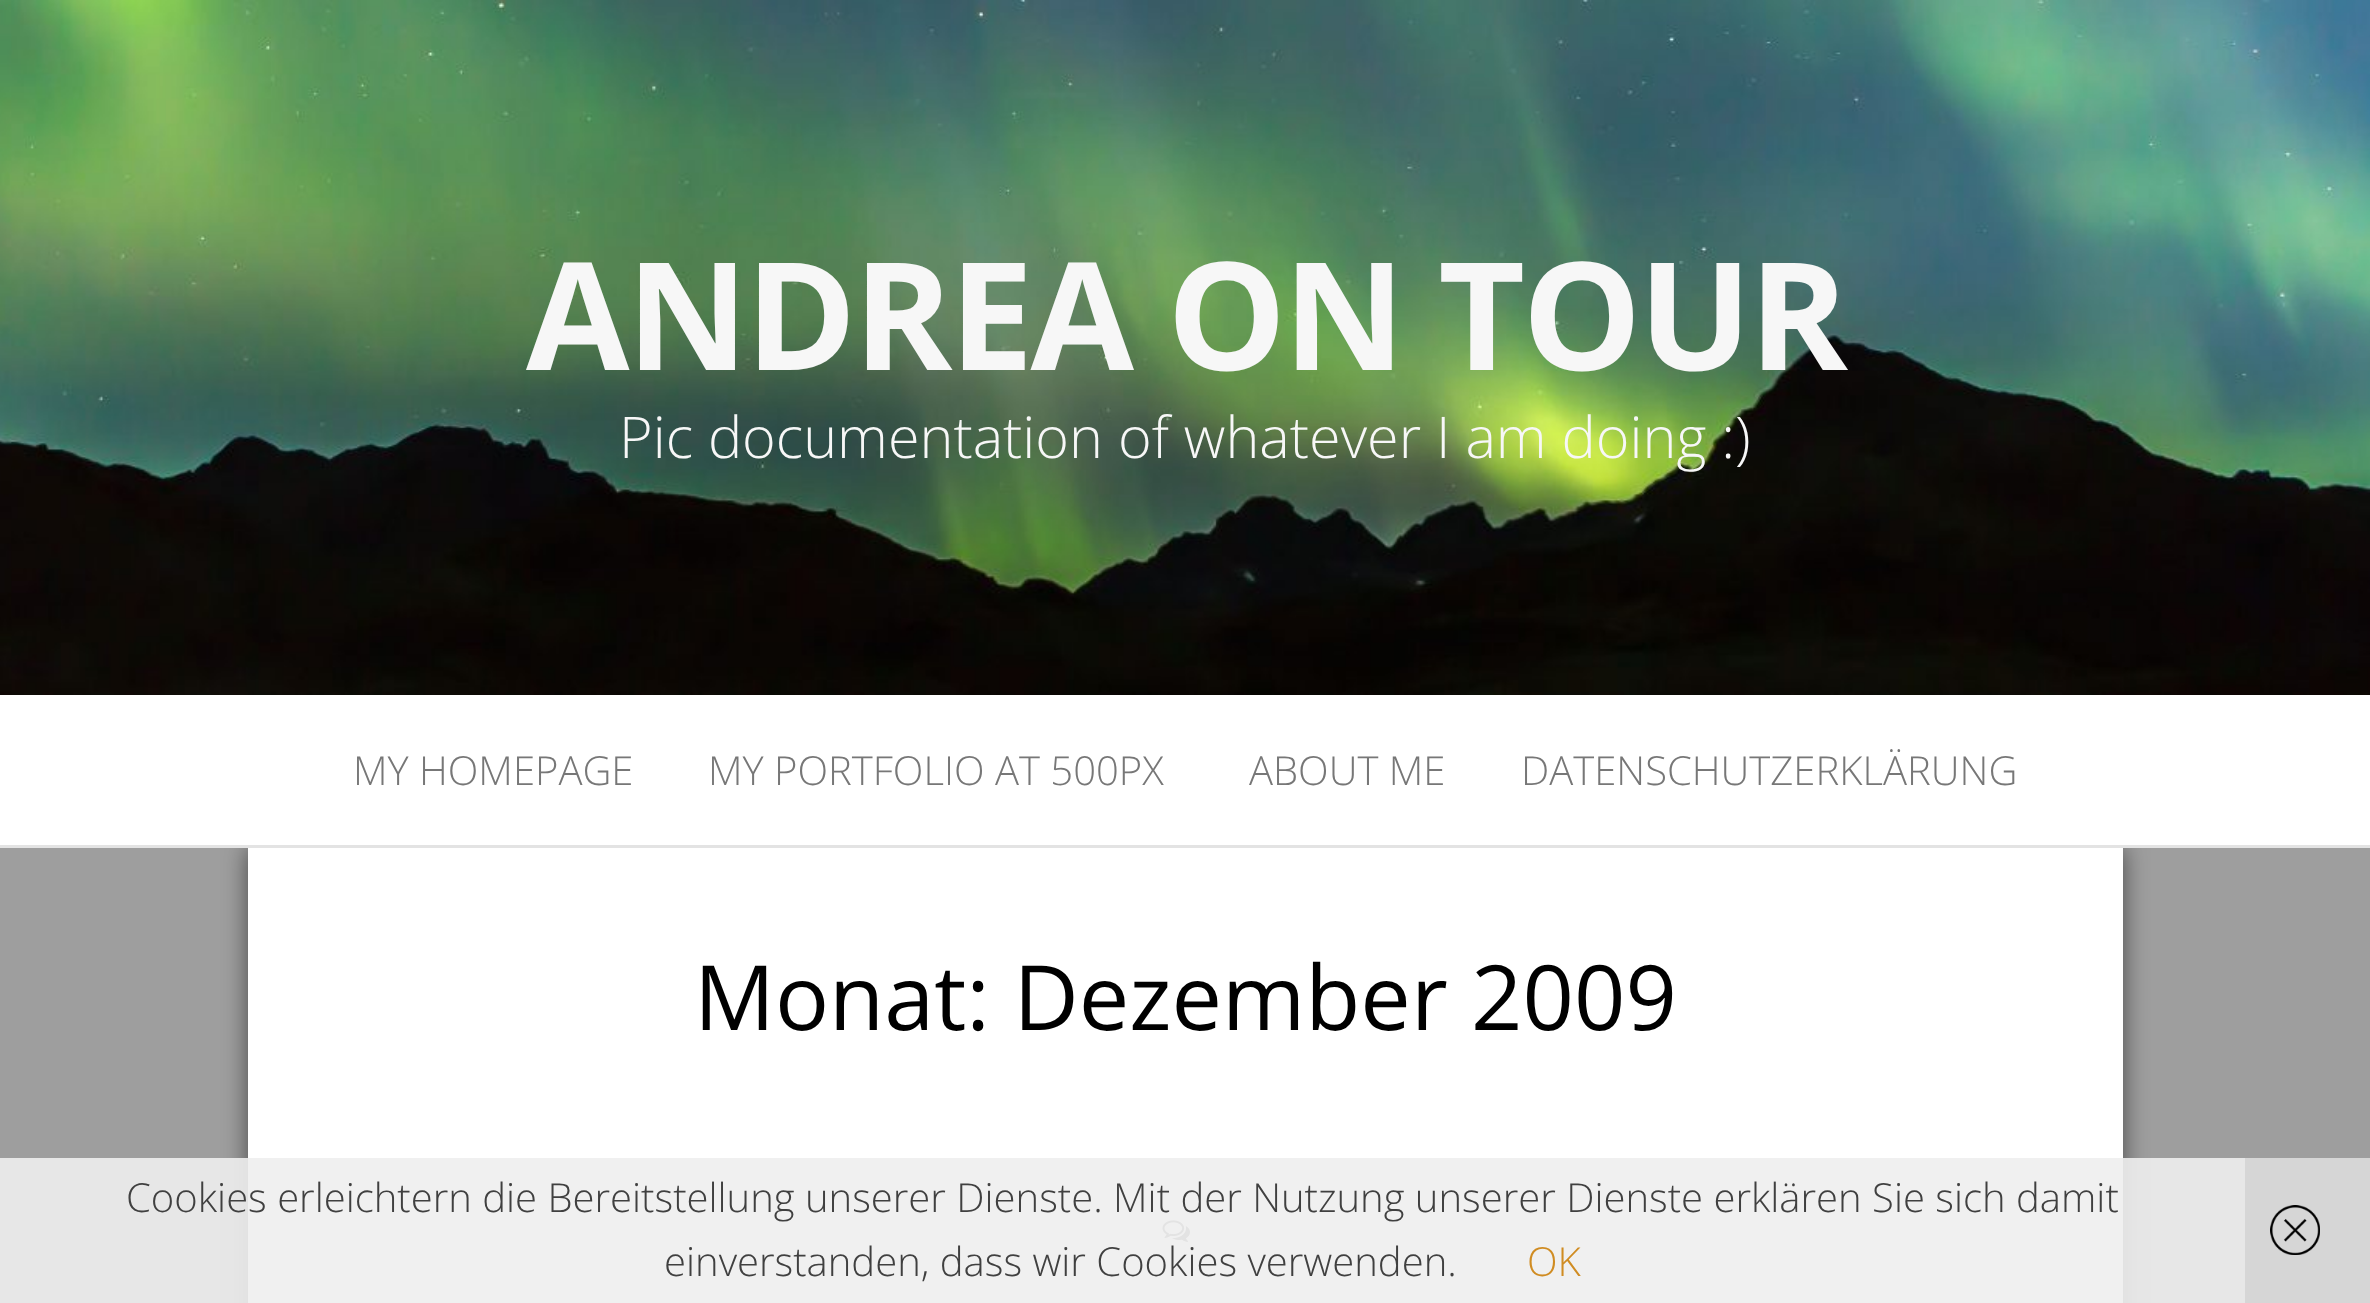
<!DOCTYPE html>
<meta charset="utf-8">
<style>body { margin: 0 } canvas { display: block }</style>
<canvas id="canvas" width="2370" height="1303"></canvas>
<script type="module">
  const canvas = document.getElementById("canvas");
  const ctx = canvas.getContext("2d");
  ctx.miterLimit = 4;
  ctx.fontKerning = "normal";
  async function loadImage(src) {
    const img = new Image();
    img.src = src;
    await img.decode();
    return img;
  }

  ctx.fillStyle = "#9e9e9e";
  ctx.fillRect(0, 0, 2370, 1303);
  ctx.drawImage(await loadImage("img1.png"), 0, 0, 2370, 695);
  ctx.letterSpacing = "-3px";
  ctx.font = "bold 150px Open Sans";
  ctx.fillStyle = "#f7f7f7";
  ctx.fillText("ANDREA ON TOUR", 526, 370);
  ctx.letterSpacing = "0px";
  ctx.font = "300 57.5px Open Sans";
  ctx.fillText("Pic documentation of whatever I am doing :)", 619, 458);
  ctx.fillStyle = "rgba(0, 0, 0, 0.55)";
  ctx.filter = "blur(12.5px)";
  ctx.beginPath();
  ctx.rect(248, 848, 1875, 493);
  ctx.fill();
  ctx.filter = "none";
  ctx.fillStyle = "#ffffff";
  ctx.fillRect(0, 695, 2370, 150);
  ctx.fillStyle = "#e3e3e3";
  ctx.fillRect(0, 845, 2370, 3);
  ctx.font = "300 40px Open Sans";
  ctx.fillStyle = "#777777";
  ctx.fillText("MY HOMEPAGE", 353, 785);
  ctx.fillText("MY PORTFOLIO AT 500PX", 708, 785);
  ctx.fillText("ABOUT ME", 1249, 785);
  ctx.fillText("DATENSCHUTZERKLÄRUNG", 1521, 785);
  ctx.fillStyle = "#ffffff";
  ctx.fillRect(248, 848, 1875, 455);
  ctx.font = "90px Open Sans";
  ctx.fillStyle = "#000000";
  ctx.fillText("Monat: Dezember 2009", 694, 1030);
  ctx.drawImage(await loadImage("img2.png"), 1162, 1220, 28, 22);
  ctx.fillStyle = "rgba(238, 238, 238, 0.9)";
  ctx.fillRect(0, 1158, 2245, 145);
  ctx.font = "300 40px Open Sans";
  ctx.fillStyle = "#404040";
  ctx.fillText("Cookies erleichtern die Bereitstellung unserer Dienste. Mit der Nutzung unserer Dienste erklären Sie sich damit", 126, 1212);
  ctx.fillText("einverstanden, dass wir Cookies verwenden.", 664, 1276);
  ctx.fillStyle = "#d08c22";
  ctx.fillText("OK", 1527, 1276);
  ctx.fillStyle = "#d6d6d6";
  ctx.fillRect(2245, 1158, 125, 145);
  ctx.drawImage(await loadImage("img3.png"), 2270, 1205, 50, 50);
</script>
